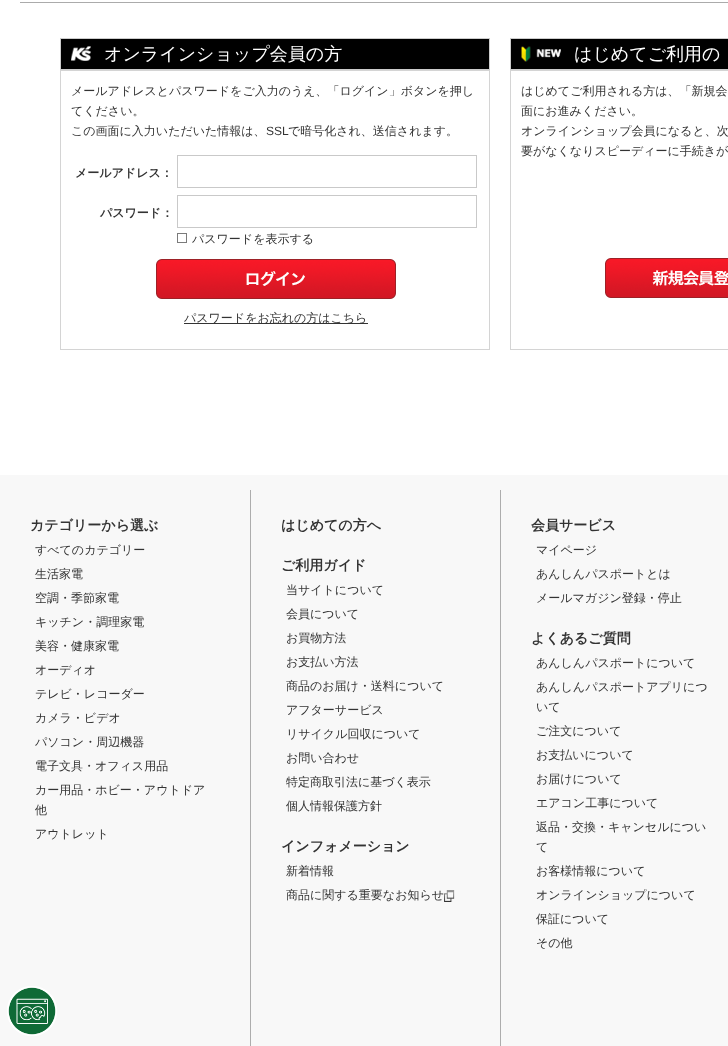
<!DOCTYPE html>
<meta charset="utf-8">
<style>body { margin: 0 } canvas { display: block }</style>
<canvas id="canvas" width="728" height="1046"></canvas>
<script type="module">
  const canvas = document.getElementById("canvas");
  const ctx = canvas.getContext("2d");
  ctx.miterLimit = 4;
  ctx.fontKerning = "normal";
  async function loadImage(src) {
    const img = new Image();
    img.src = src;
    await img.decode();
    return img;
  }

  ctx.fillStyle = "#ffffff";
  ctx.fillRect(0, 0, 728, 1046);
  ctx.fillStyle = "#ababab";
  ctx.fillRect(20, 2, 708, 1);
  ctx.fillStyle = "#000000";
  ctx.beginPath();
  ctx.rect(60.5, 38.5, 429, 31);
  ctx.fill();
  ctx.strokeStyle = "#cccccc";
  ctx.stroke();
  ctx.drawImage(await loadImage("img1.png"), 71, 46, 20, 15);
  ctx.font = "500 18px WenQuanYi Zen Hei";
  ctx.fillStyle = "#ffffff";
  ctx.fillText("オンラインショップ会員の方", 104, 60);
  ctx.strokeStyle = "#d4d4d4";
  ctx.strokeRect(60.5, 70.5, 429, 279);
  ctx.font = "500 12px WenQuanYi Zen Hei";
  ctx.fillStyle = "#333333";
  ctx.fillText("メールアドレスとパスワードをご入力のうえ、「ログイン」ボタンを押し", 71, 95);
  ctx.fillText("てください。", 71, 115);
  ctx.fillText("この画面に入力いただいた情報は、", 71, 135);
  ctx.font = "12px Liberation Sans";
  ctx.fillText("SSL", 266, 135);
  ctx.font = "500 12px WenQuanYi Zen Hei";
  ctx.fillText("で暗号化され、送信されます。", 288, 135);
  ctx.font = "bold 12px WenQuanYi Zen Hei";
  ctx.fillText("メールアドレス：", 75, 177);
  ctx.strokeStyle = "#c9c9c9";
  ctx.strokeRect(177.5, 155.5, 299, 32);
  ctx.fillText("パスワード：", 100, 217);
  ctx.strokeRect(177.5, 195.5, 299, 32);
  ctx.strokeStyle = "#7b7b7b";
  ctx.strokeRect(177.5, 233.5, 9, 9);
  ctx.font = "500 12px WenQuanYi Zen Hei";
  ctx.fillText("パスワードを表示する", 192, 243);
  ctx.drawImage(await loadImage("img2.png"), 156, 259, 240, 40);
  ctx.fillRect(184, 323, 184, 1);
  ctx.fillText("パスワードをお忘れの方はこちら", 184, 322);
  ctx.fillStyle = "#000000";
  ctx.beginPath();
  ctx.rect(510.5, 38.5, 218, 31);
  ctx.fill();
  ctx.strokeStyle = "#cccccc";
  ctx.stroke();
  ctx.drawImage(await loadImage("img3.png"), 521, 46, 40, 16);
  ctx.font = "500 18px WenQuanYi Zen Hei";
  ctx.fillStyle = "#ffffff";
  ctx.fillText("はじめてご利用の", 574, 60);
  ctx.strokeStyle = "#d4d4d4";
  ctx.strokeRect(510.5, 70.5, 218, 279);
  ctx.font = "500 12px WenQuanYi Zen Hei";
  ctx.fillStyle = "#333333";
  ctx.fillText("はじめてご利用される方は、「新規会", 521, 95);
  ctx.fillText("面にお進みください。", 521, 115);
  ctx.fillText("オンラインショップ会員になると、次", 521, 135);
  ctx.fillText("要がなくなりスピーディーに手続きが", 521, 155);
  ctx.drawImage(await loadImage("img4.png"), 605, 258, 123, 40);
  ctx.fillStyle = "#f8f8f8";
  ctx.fillRect(0, 475, 728, 571);
  ctx.font = "bold 14px WenQuanYi Zen Hei";
  ctx.fillStyle = "#333333";
  ctx.fillText("カテゴリーから選ぶ", 30, 530);
  ctx.font = "500 12px WenQuanYi Zen Hei";
  ctx.fillText("すべてのカテゴリー", 35, 554);
  ctx.fillText("生活家電", 35, 578);
  ctx.fillText("空調・季節家電", 35, 602);
  ctx.fillText("キッチン・調理家電", 35, 626);
  ctx.fillText("美容・健康家電", 35, 650);
  ctx.fillText("オーディオ", 35, 674);
  ctx.fillText("テレビ・レコーダー", 35, 698);
  ctx.fillText("カメラ・ビデオ", 35, 722);
  ctx.fillText("パソコン・周辺機器", 35, 746);
  ctx.fillText("電子文具・オフィス用品", 35, 770);
  ctx.fillText("カー用品・ホビー・アウトドア", 35, 794);
  ctx.fillText("他", 35, 814);
  ctx.fillText("アウトレット", 35, 838);
  ctx.fillStyle = "#adadad";
  ctx.fillRect(250, 490, 1, 556);
  ctx.font = "bold 14px WenQuanYi Zen Hei";
  ctx.fillStyle = "#333333";
  ctx.fillText("はじめての方へ", 281, 530);
  ctx.fillText("ご利用ガイド", 281, 570);
  ctx.font = "500 12px WenQuanYi Zen Hei";
  ctx.fillText("当サイトについて", 286, 594);
  ctx.fillText("会員について", 286, 618);
  ctx.fillText("お買物方法", 286, 642);
  ctx.fillText("お支払い方法", 286, 666);
  ctx.fillText("商品のお届け・送料について", 286, 690);
  ctx.fillText("アフターサービス", 286, 714);
  ctx.fillText("リサイクル回収について", 286, 738);
  ctx.fillText("お問い合わせ", 286, 762);
  ctx.fillText("特定商取引法に基づく表示", 286, 786);
  ctx.fillText("個人情報保護方針", 286, 810);
  ctx.font = "bold 14px WenQuanYi Zen Hei";
  ctx.fillText("インフォメーション", 281, 851);
  ctx.font = "500 12px WenQuanYi Zen Hei";
  ctx.fillText("新着情報", 286, 875);
  ctx.fillText("商品に関する重要なお知らせ", 286, 899);
  ctx.drawImage(await loadImage("img5.png"), 444, 890, 11, 12);
  ctx.fillStyle = "#adadad";
  ctx.fillRect(500, 490, 1, 556);
  ctx.font = "bold 14px WenQuanYi Zen Hei";
  ctx.fillStyle = "#333333";
  ctx.fillText("会員サービス", 531, 530);
  ctx.font = "500 12px WenQuanYi Zen Hei";
  ctx.fillText("マイページ", 536, 554);
  ctx.fillText("あんしんパスポートとは", 536, 578);
  ctx.fillText("メールマガジン登録・停止", 536, 602);
  ctx.font = "bold 14px WenQuanYi Zen Hei";
  ctx.fillText("よくあるご質問", 531, 643);
  ctx.font = "500 12px WenQuanYi Zen Hei";
  ctx.fillText("あんしんパスポートについて", 536, 667);
  ctx.fillText("あんしんパスポートアプリにつ", 536, 691);
  ctx.fillText("いて", 536, 711);
  ctx.fillText("ご注文について", 536, 735);
  ctx.fillText("お支払いについて", 536, 759);
  ctx.fillText("お届けについて", 536, 783);
  ctx.fillText("エアコン工事について", 536, 807);
  ctx.fillText("返品・交換・キャンセルについ", 536, 831);
  ctx.fillText("て", 536, 851);
  ctx.fillText("お客様情報について", 536, 875);
  ctx.fillText("オンラインショップについて", 536, 899);
  ctx.fillText("保証について", 536, 923);
  ctx.fillText("その他", 536, 947);
  ctx.drawImage(await loadImage("img6.png"), 7, 986, 50, 50);
</script>
